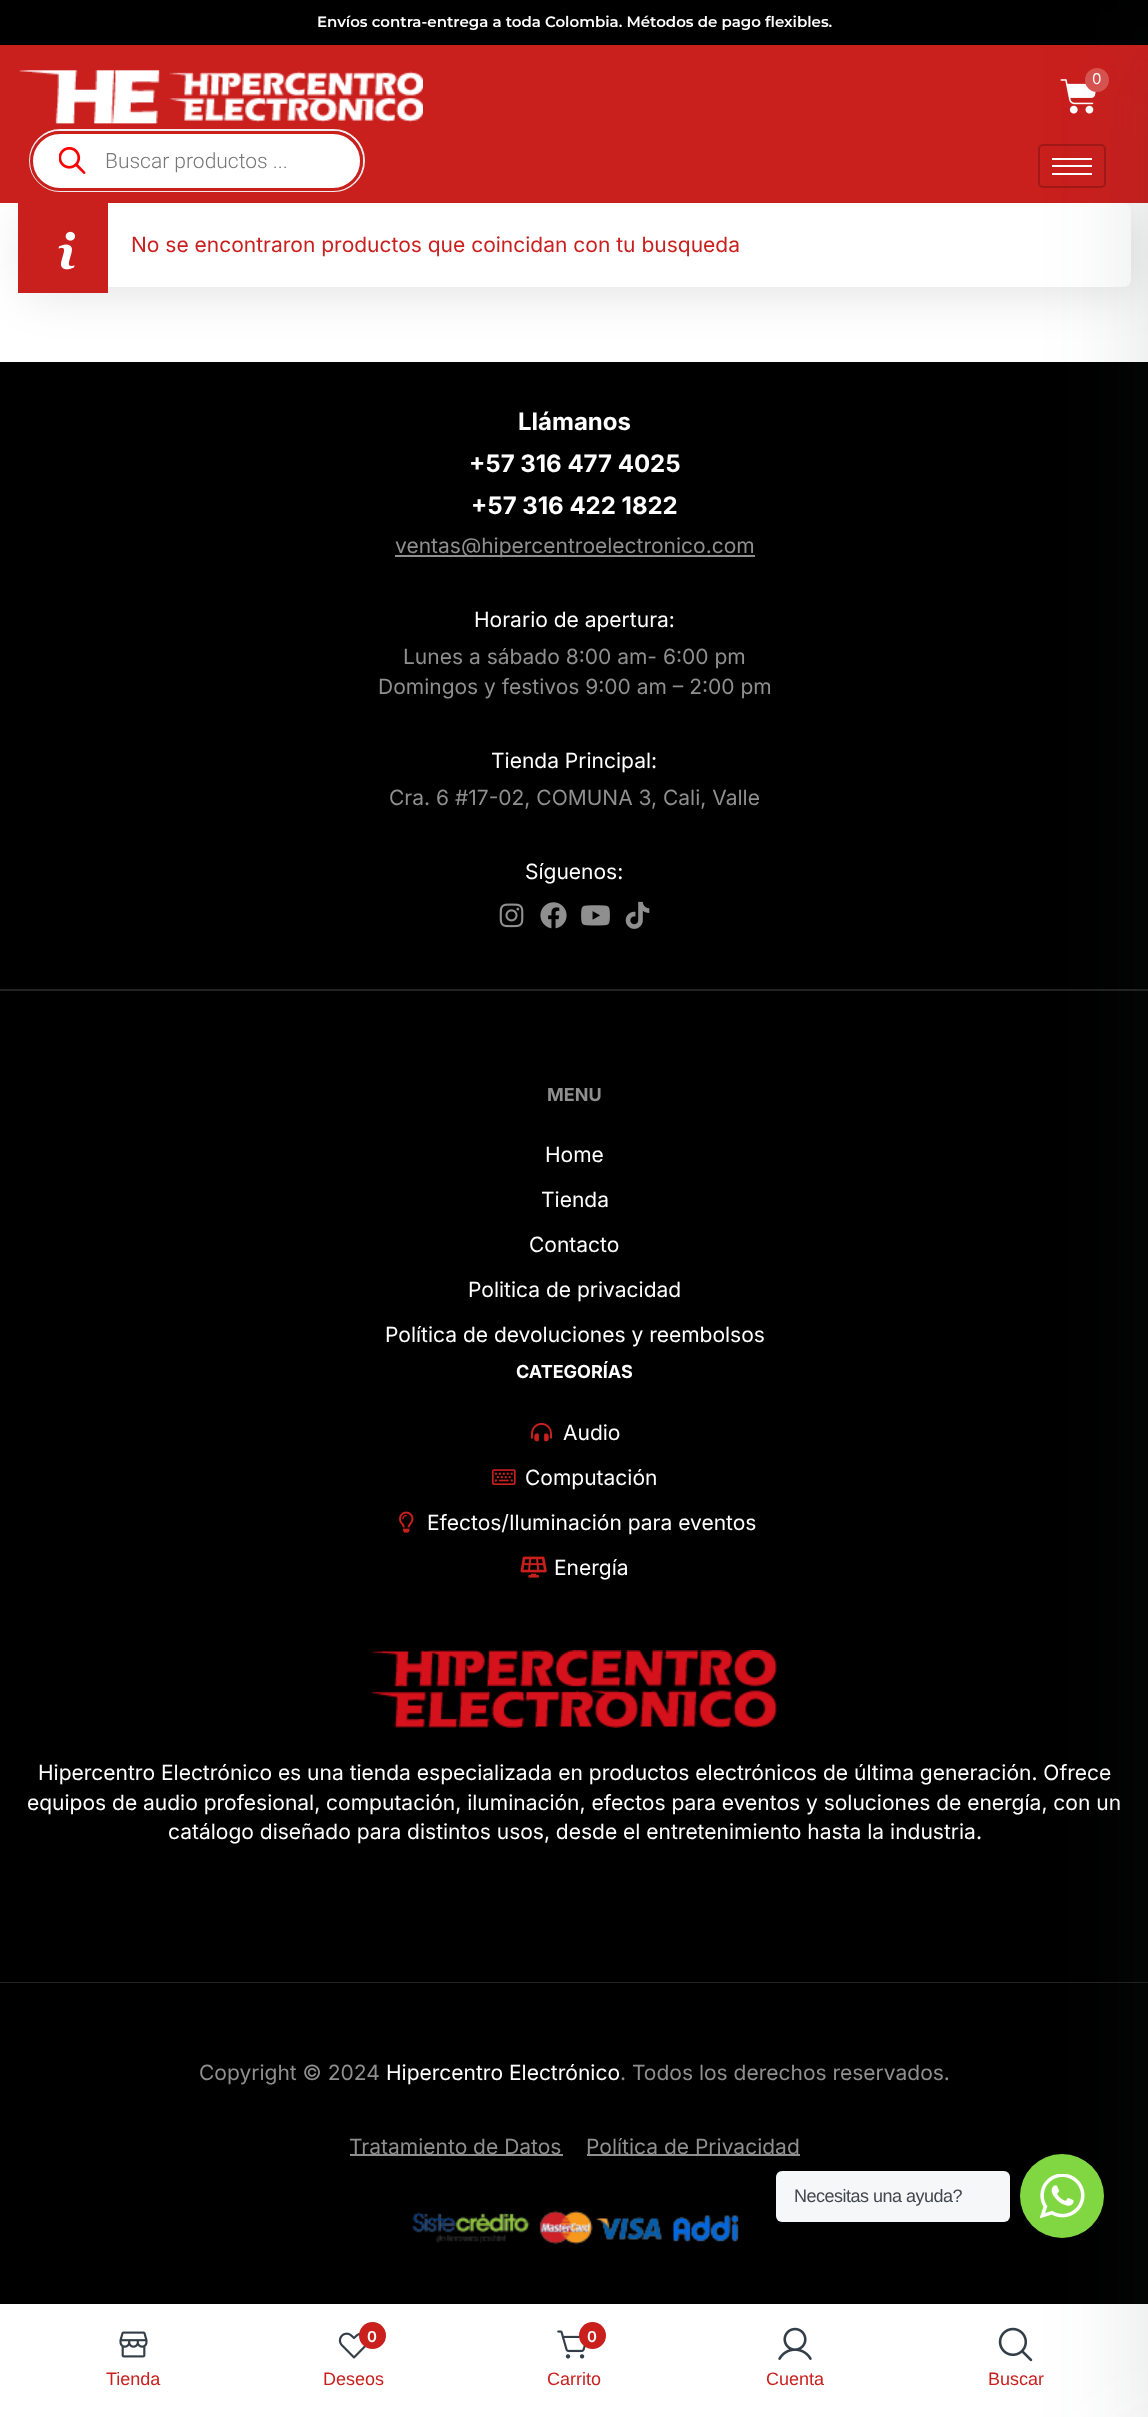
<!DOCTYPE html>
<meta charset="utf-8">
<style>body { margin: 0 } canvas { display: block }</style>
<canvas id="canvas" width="1148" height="2417"></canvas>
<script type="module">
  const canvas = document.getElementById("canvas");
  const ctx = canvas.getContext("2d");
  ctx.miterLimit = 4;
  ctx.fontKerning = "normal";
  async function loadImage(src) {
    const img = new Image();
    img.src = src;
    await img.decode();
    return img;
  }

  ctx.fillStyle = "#ffffff";
  ctx.fillRect(0, 0, 1148, 2417);
  ctx.fillStyle = "#000000";
  ctx.fillRect(0, 0, 1148, 45);
  ctx.font = "600 15px Montserrat";
  ctx.fillStyle = "#ffffff";
  ctx.fillText("Envíos contra-entrega a toda Colombia. Métodos de pago flexibles.", 317, 27);
  ctx.save();
  ctx.beginPath();
  ctx.moveTo(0, 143);
  ctx.lineTo(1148, 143);
  ctx.lineTo(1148, 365);
  ctx.lineTo(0, 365);
  ctx.closePath();
  ctx.moveTo(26, 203);
  ctx.lineTo(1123, 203);
  ctx.bezierCurveTo(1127.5, 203, 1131, 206.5, 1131, 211);
  ctx.lineTo(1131, 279);
  ctx.bezierCurveTo(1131, 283.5, 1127.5, 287, 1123, 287);
  ctx.lineTo(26, 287);
  ctx.bezierCurveTo(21.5, 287, 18, 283.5, 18, 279);
  ctx.lineTo(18, 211);
  ctx.bezierCurveTo(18, 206.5, 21.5, 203, 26, 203);
  ctx.closePath();
  ctx.clip("evenodd");
  ctx.fillStyle = "rgba(0, 0, 0, 0.1)";
  ctx.filter = "blur(22.5px)";
  ctx.beginPath();
  ctx.roundRect(26, 212, 1113, 84, 8);
  ctx.fill();
  ctx.filter = "none";
  ctx.restore();
  ctx.fillStyle = "#c91f1d";
  ctx.fillRect(0, 45, 1148, 158);
  ctx.drawImage(await loadImage("img1.png"), 19, 70, 404, 54);
  ctx.drawImage(await loadImage("img2.png"), 1060, 79, 36, 35);
  ctx.fillStyle = "#d9534f";
  ctx.beginPath();
  ctx.arc(1097, 80, 12, 0, Math.PI * 2);
  ctx.fill();
  ctx.font = "15px Inter";
  ctx.fillStyle = "#ffffff";
  ctx.fillText("0", 1092, 84);
  ctx.beginPath();
  ctx.roundRect(30, 130, 334, 61, 30.5);
  ctx.strokeStyle = "#eeeeee";
  ctx.lineWidth = 2;
  ctx.stroke();
  ctx.beginPath();
  ctx.roundRect(31.5, 132.5, 330, 57, 28.5);
  ctx.fill();
  ctx.strokeStyle = "#c91f1d";
  ctx.lineWidth = 3;
  ctx.stroke();
  ctx.drawImage(await loadImage("img3.png"), 59, 147, 27, 27);
  ctx.font = "300 21px Roboto";
  ctx.fillStyle = "#777777";
  ctx.fillText("Buscar productos ...", 105, 168);
  ctx.beginPath();
  ctx.roundRect(1039, 145, 66, 42, 4);
  ctx.strokeStyle = "#a11917";
  ctx.lineWidth = 2;
  ctx.stroke();
  ctx.fillStyle = "#ffffff";
  ctx.fillRect(1052, 158, 40, 2);
  ctx.fillRect(1052, 165, 40, 2);
  ctx.fillRect(1052, 173, 40, 2);
  ctx.fillStyle = "#c91f1d";
  ctx.fillRect(18, 203, 90, 90);
  ctx.drawImage(await loadImage("img4.png"), 58, 231, 17, 39);
  ctx.font = "21px Inter";
  ctx.fillText("No se encontraron productos que coincidan con tu busqueda", 131, 252);
  ctx.fillStyle = "#000000";
  ctx.fillRect(0, 362, 1148, 627);
  ctx.font = "bold 24px Inter";
  ctx.fillStyle = "#ffffff";
  ctx.fillText("Llámanos", 518, 430);
  ctx.fillText("+57 316 477 4025", 469, 472);
  ctx.fillText("+57 316 422 1822", 471, 514);
  ctx.fillStyle = "#8f8f8f";
  ctx.fillRect(395, 555, 360, 2);
  ctx.font = "21px Inter";
  ctx.fillText("ventas@hipercentroelectronico.com", 395, 553);
  ctx.fillStyle = "#ffffff";
  ctx.fillText("Horario de apertura:", 474, 627);
  ctx.fillStyle = "#8f8f8f";
  ctx.fillText("Lunes a sábado 8:00 am- 6:00 pm", 403, 664);
  ctx.fillText("Domingos y festivos 9:00 am – 2:00 pm", 378, 694);
  ctx.fillStyle = "#ffffff";
  ctx.fillText("Tienda Principal:", 491, 768);
  ctx.fillStyle = "#8f8f8f";
  ctx.fillText("Cra. 6 #17-02, COMUNA 3, Cali, Valle", 389, 805);
  ctx.fillStyle = "#ffffff";
  ctx.fillText("Síguenos:", 525, 879);
  ctx.drawImage(await loadImage("img5.png"), 499, 903, 25, 25);
  ctx.drawImage(await loadImage("img6.png"), 540, 902, 27, 27);
  ctx.drawImage(await loadImage("img7.png"), 581, 905, 29, 21);
  ctx.drawImage(await loadImage("img8.png"), 625, 901, 25, 28);
  ctx.fillStyle = "#000000";
  ctx.fillRect(0, 991, 1148, 991);
  ctx.fillStyle = "#222222";
  ctx.fillRect(0, 989, 1148, 2);
  ctx.fillRect(0, 1982, 1148, 1);
  ctx.font = "bold 18px Inter";
  ctx.fillStyle = "#8f8f8f";
  ctx.fillText("MENU", 547, 1101);
  ctx.font = "21px Inter";
  ctx.fillStyle = "#ffffff";
  ctx.fillText("Home", 545, 1162);
  ctx.fillText("Tienda", 541, 1207);
  ctx.fillText("Contacto", 529, 1252);
  ctx.fillText("Politica de privacidad", 468, 1297);
  ctx.fillText("Política de devoluciones y reembolsos", 385, 1342);
  ctx.font = "bold 18px Inter";
  ctx.fillText("CATEGORÍAS", 516, 1378);
  ctx.drawImage(await loadImage("img9.png"), 531, 1422, 21, 20);
  ctx.font = "21px Inter";
  ctx.fillText("Audio", 563, 1440);
  ctx.drawImage(await loadImage("img10.png"), 492, 1469, 24, 16);
  ctx.fillText("Computación", 525, 1485);
  ctx.drawImage(await loadImage("img11.png"), 399, 1511, 15, 22);
  ctx.fillText("Efectos/Iluminación para eventos", 427, 1530);
  ctx.drawImage(await loadImage("img12.png"), 520, 1556, 27, 22);
  ctx.fillText("Energía", 554, 1575);
  ctx.drawImage(await loadImage("img13.png"), 372, 1650, 405, 78);
  ctx.fillText("Hipercentro Electrónico es una tienda especializada en productos electrónicos de última generación. Ofrece", 38, 1780);
  ctx.fillText("equipos de audio profesional, computación, iluminación, efectos para eventos y soluciones de energía, con un", 27, 1810);
  ctx.fillText("catálogo diseñado para distintos usos, desde el entretenimiento hasta la industria.", 168, 1839);
  ctx.fillStyle = "#000000";
  ctx.fillRect(0, 1983, 1148, 321);
  ctx.fillStyle = "#8f8f8f";
  ctx.fillText("Copyright © 2024", 199, 2080);
  ctx.fillStyle = "#ffffff";
  ctx.fillText("Hipercentro Electrónico", 386, 2080);
  ctx.fillStyle = "#8f8f8f";
  ctx.fillText(". Todos los derechos reservados.", 620, 2080);
  ctx.fillText("Tratamiento de Datos", 349, 2154);
  ctx.fillRect(350, 2154, 213, 2);
  ctx.fillText("Política de Privacidad", 586, 2154);
  ctx.fillRect(587, 2154, 213, 2);
  ctx.drawImage(await loadImage("img14.png"), 412, 2210, 327, 35);
  ctx.drawImage(await loadImage("img20.png"), 998, 2327, 35, 35);
  ctx.fillStyle = "rgba(57, 62, 70, 0.15)";
  ctx.filter = "blur(52.5px)";
  ctx.beginPath();
  ctx.rect(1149, 45, 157, 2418);
  ctx.fill();
  ctx.filter = "none";
  ctx.fillStyle = "#f5f7f9";
  ctx.beginPath();
  ctx.roundRect(776, 2171, 234, 51, 6);
  ctx.fill();
  ctx.letterSpacing = "-0.5px";
  ctx.font = "18px Liberation Sans";
  ctx.fillStyle = "#43474e";
  ctx.fillText("Necesitas una ayuda?", 794, 2202);
  ctx.fillStyle = "#81d742";
  ctx.beginPath();
  ctx.arc(1062, 2196, 42, 0, Math.PI * 2);
  ctx.fill();
  ctx.drawImage(await loadImage("img15.png"), 1040, 2174, 45, 45);
  ctx.drawImage(await loadImage("img16.png"), 119, 2331, 29, 27);
  ctx.letterSpacing = "0px";
  ctx.fillStyle = "#c91f1d";
  ctx.fillText("Tienda", 106, 2385);
  ctx.drawImage(await loadImage("img17.png"), 338, 2332, 28, 27);
  ctx.beginPath();
  ctx.arc(372.5, 2335.5, 13.5, 0, Math.PI * 2);
  ctx.fill();
  ctx.font = "600 15px Inter";
  ctx.fillStyle = "#ffffff";
  ctx.fillText("0", 367, 2342);
  ctx.font = "18px Liberation Sans";
  ctx.fillStyle = "#c91f1d";
  ctx.fillText("Deseos", 323, 2385);
  ctx.drawImage(await loadImage("img18.png"), 557, 2330, 29, 29);
  ctx.beginPath();
  ctx.arc(592.5, 2335.5, 13.5, 0, Math.PI * 2);
  ctx.fill();
  ctx.font = "600 15px Inter";
  ctx.fillStyle = "#ffffff";
  ctx.fillText("0", 587, 2342);
  ctx.font = "18px Liberation Sans";
  ctx.fillStyle = "#c91f1d";
  ctx.fillText("Carrito", 547, 2385);
  ctx.drawImage(await loadImage("img19.png"), 778, 2327, 34, 33);
  ctx.fillText("Cuenta", 766, 2385);
  ctx.fillText("Buscar", 988, 2385);
</script>
